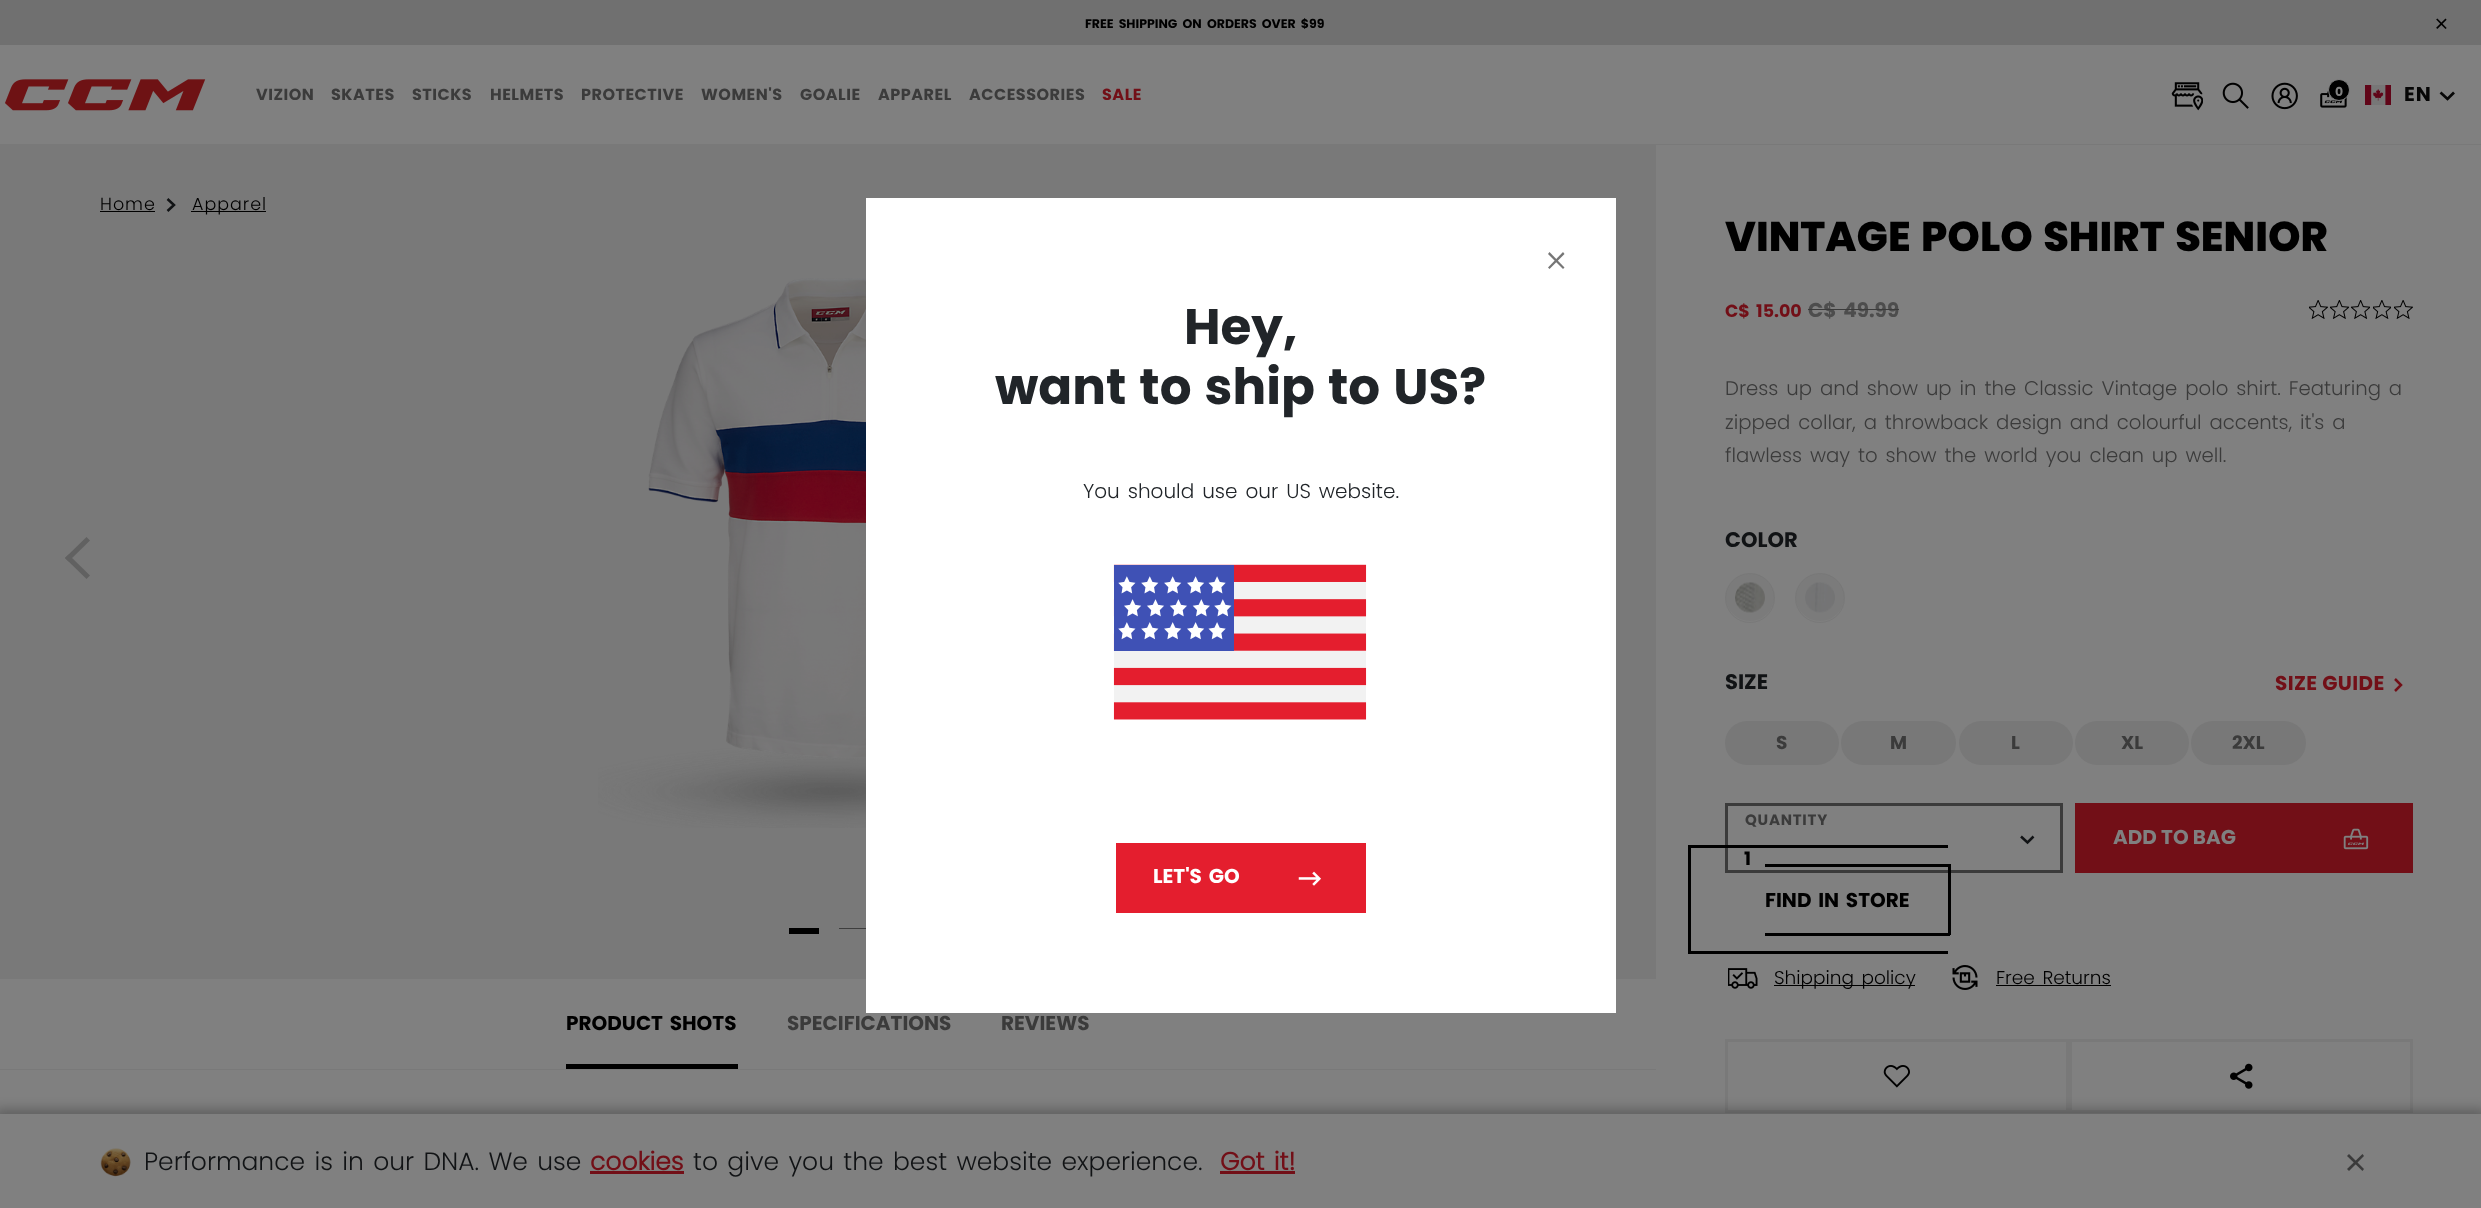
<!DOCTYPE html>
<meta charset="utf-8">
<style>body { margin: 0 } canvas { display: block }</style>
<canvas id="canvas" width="2481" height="1208"></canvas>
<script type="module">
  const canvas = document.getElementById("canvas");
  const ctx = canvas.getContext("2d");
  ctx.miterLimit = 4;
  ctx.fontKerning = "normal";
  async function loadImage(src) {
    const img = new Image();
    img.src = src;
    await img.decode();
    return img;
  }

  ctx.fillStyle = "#808080";
  ctx.fillRect(0, 0, 2481, 1208);
  ctx.fillStyle = "#707070";
  ctx.fillRect(0, 0, 2481, 45);
  ctx.wordSpacing = "2.5px";
  ctx.font = "bold 12.5px Poppins";
  ctx.fillStyle = "#000000";
  ctx.fillText("FREE SHIPPING ON ORDERS OVER $99", 1085, 28);
  ctx.wordSpacing = "0px";
  ctx.font = "300 25px Poppins";
  ctx.fillText("×", 2434, 33);
  ctx.drawImage(await loadImage("img1.png"), 5, 79, 201, 32);
  ctx.letterSpacing = "0.5px";
  ctx.font = "bold 16px Poppins";
  ctx.fillStyle = "#3b3b3b";
  ctx.fillText("VIZION", 256, 100);
  ctx.fillText("SKATES", 331, 100);
  ctx.fillText("STICKS", 412, 100);
  ctx.fillText("HELMETS", 490, 100);
  ctx.fillText("PROTECTIVE", 581, 100);
  ctx.fillText("WOMEN'S", 701, 100);
  ctx.fillText("GOALIE", 800, 100);
  ctx.fillText("APPAREL", 878, 100);
  ctx.fillText("ACCESSORIES", 969, 100);
  ctx.fillStyle = "#720f17";
  ctx.fillText("SALE", 1102, 100);
  ctx.drawImage(await loadImage("img2.png"), 2171, 82, 32, 29);
  ctx.drawImage(await loadImage("img3.png"), 2222, 82, 27, 27);
  ctx.drawImage(await loadImage("img4.png"), 2271, 82, 27, 28);
  ctx.drawImage(await loadImage("img5.png"), 2320, 88, 27, 20);
  ctx.fillStyle = "#000000";
  ctx.beginPath();
  ctx.arc(2339, 90, 10.5, 0, Math.PI * 2);
  ctx.fill();
  ctx.strokeStyle = "#808080";
  ctx.stroke();
  ctx.letterSpacing = "0px";
  ctx.font = "bold 12.5px Poppins";
  ctx.fillStyle = "#808080";
  ctx.fillText("0", 2335, 96);
  ctx.drawImage(await loadImage("img6.png"), 2365, 85, 26, 20);
  ctx.letterSpacing = "1px";
  ctx.font = "bold 20px Poppins";
  ctx.fillStyle = "#070707";
  ctx.fillText("EN", 2404, 101);
  ctx.beginPath();
  ctx.moveTo(2454, 92.5);
  ctx.lineTo(2447.5, 99);
  ctx.lineTo(2440.5, 92.5);
  ctx.strokeStyle = "#070707";
  ctx.lineWidth = 2.7;
  ctx.stroke();
  ctx.fillStyle = "#797979";
  ctx.fillRect(0, 144, 2481, 1);
  ctx.fillRect(0, 145, 1656, 834);
  ctx.fillStyle = "#616161";
  ctx.beginPath();
  ctx.moveTo(65, 558);
  ctx.lineTo(86.5, 537);
  ctx.lineTo(90, 540.5);
  ctx.lineTo(68.5, 561.5);
  ctx.closePath();
  ctx.fill();
  ctx.beginPath();
  ctx.moveTo(68.5, 554.5);
  ctx.lineTo(90, 575.5);
  ctx.lineTo(86.5, 579);
  ctx.lineTo(65, 558);
  ctx.closePath();
  ctx.fill();
  ctx.drawImage(await loadImage("img7.png"), 598, 278, 268, 550);
  ctx.fillStyle = "#000000";
  ctx.fillRect(789, 928, 30, 6);
  ctx.fillStyle = "#3e3e3e";
  ctx.fillRect(839, 928, 30, 1);
  ctx.font = "300 17.5px Poppins";
  ctx.fillStyle = "#000000";
  ctx.fillText("Home", 100, 210);
  ctx.fillRect(100, 211, 55, 1);
  ctx.beginPath();
  ctx.moveTo(167.5, 199);
  ctx.lineTo(174, 205);
  ctx.lineTo(167.5, 211);
  ctx.strokeStyle = "#111315";
  ctx.lineWidth = 2.5;
  ctx.stroke();
  ctx.fillRect(191, 211, 75, 1);
  ctx.fillText("Apparel", 192, 210);
  ctx.letterSpacing = "0px";
  ctx.wordSpacing = "2.5px";
  ctx.font = "800 41.4px Poppins";
  ctx.fillText("VINTAGE POLO SHIRT SENIOR", 1725, 251);
  ctx.font = "bold 17.5px Poppins";
  ctx.fillStyle = "#720f17";
  ctx.fillText("C$ 15.00", 1725, 317);
  ctx.font = "bold 20px Poppins";
  ctx.fillStyle = "#4d4d4d";
  ctx.fillText("C$ 49.99", 1808, 317);
  ctx.fillStyle = "#3b3b3b";
  ctx.fillRect(1808, 309, 91, 1);
  ctx.drawImage(await loadImage("img8.png"), 2309, 300, 19, 19);
  ctx.drawImage(await loadImage("img9.png"), 2330, 300, 19, 19);
  ctx.drawImage(await loadImage("img10.png"), 2351, 300, 19, 19);
  ctx.drawImage(await loadImage("img11.png"), 2373, 300, 18, 19);
  ctx.drawImage(await loadImage("img8.png"), 2394, 300, 19, 19);
  ctx.font = "300 19.7px Poppins";
  ctx.fillText("Dress up and show up in the Classic Vintage polo shirt. Featuring a", 1725, 395);
  ctx.fillText("zipped collar, a throwback design and colourful accents, it's a", 1725, 429);
  ctx.fillText("flawless way to show the world you clean up well.", 1725, 462);
  ctx.wordSpacing = "0px";
  ctx.font = "bold 21px Poppins";
  ctx.fillStyle = "#111315";
  ctx.fillText("COLOR", 1725, 547);
  ctx.beginPath();
  ctx.arc(1750, 598, 24.5, 0, Math.PI * 2);
  ctx.strokeStyle = "#797979";
  ctx.lineWidth = 1;
  ctx.stroke();
  ctx.drawImage(await loadImage("img12.png"), 1735, 582, 30, 31);
  ctx.fillStyle = "rgba(98, 98, 98, 0.17)";
  ctx.beginPath();
  ctx.roundRect(1726, 574, 48, 47, 23.5);
  ctx.fill();
  ctx.beginPath();
  ctx.arc(1820, 598, 24.5, 0, Math.PI * 2);
  ctx.stroke();
  ctx.drawImage(await loadImage("img13.png"), 1805, 582, 30, 31);
  ctx.beginPath();
  ctx.roundRect(1796, 574, 48, 47, 23.5);
  ctx.fill();
  ctx.fillStyle = "#111315";
  ctx.fillText("SIZE", 1725, 689);
  ctx.letterSpacing = "0.4px";
  ctx.font = "bold 20px Poppins";
  ctx.fillStyle = "#720f17";
  ctx.fillText("SIZE GUIDE", 2275, 690);
  ctx.beginPath();
  ctx.moveTo(2395, 679);
  ctx.lineTo(2401, 685);
  ctx.lineTo(2395, 691);
  ctx.strokeStyle = "#720f17";
  ctx.lineWidth = 2.5;
  ctx.stroke();
  ctx.fillStyle = "#787878";
  ctx.beginPath();
  ctx.roundRect(1725, 721, 114, 44, 22);
  ctx.fill();
  ctx.letterSpacing = "0px";
  ctx.font = "bold 18.5px Poppins";
  ctx.fillStyle = "#3b3b3b";
  ctx.fillText("S", 1776, 749);
  ctx.fillStyle = "#787878";
  ctx.beginPath();
  ctx.roundRect(1841, 721, 115, 44, 22);
  ctx.fill();
  ctx.fillStyle = "#3b3b3b";
  ctx.fillText("M", 1890, 749);
  ctx.fillStyle = "#787878";
  ctx.beginPath();
  ctx.roundRect(1959, 721, 114, 44, 22);
  ctx.fill();
  ctx.fillStyle = "#3b3b3b";
  ctx.fillText("L", 2011, 749);
  ctx.fillStyle = "#787878";
  ctx.beginPath();
  ctx.roundRect(2075, 721, 114, 44, 22);
  ctx.fill();
  ctx.fillStyle = "#3b3b3b";
  ctx.fillText("XL", 2121, 749);
  ctx.fillStyle = "#787878";
  ctx.beginPath();
  ctx.roundRect(2191, 721, 115, 44, 22);
  ctx.fill();
  ctx.fillStyle = "#3b3b3b";
  ctx.fillText("2XL", 2232, 749);
  ctx.strokeStyle = "#3b3b3b";
  ctx.lineWidth = 3;
  ctx.strokeRect(1726.5, 804.5, 335, 67);
  ctx.letterSpacing = "0.75px";
  ctx.font = "bold 15px Poppins";
  ctx.fillText("QUANTITY", 1745, 825);
  ctx.beginPath();
  ctx.moveTo(2033.5, 836.5);
  ctx.lineTo(2027.5, 842.5);
  ctx.lineTo(2021, 836.5);
  ctx.strokeStyle = "#111315";
  ctx.lineWidth = 2.5;
  ctx.stroke();
  ctx.letterSpacing = "0px";
  ctx.font = "bold 18.5px Poppins";
  ctx.fillStyle = "#000000";
  ctx.fillText("1", 1744, 865);
  ctx.fillStyle = "#720f17";
  ctx.fillRect(2075, 803, 338, 70);
  ctx.font = "bold 20px Poppins";
  ctx.fillStyle = "#808080";
  ctx.fillText("ADD TO BAG", 2113, 844);
  ctx.drawImage(await loadImage("img14.png"), 2343, 828, 26, 22);
  ctx.wordSpacing = "2.5px";
  ctx.fillStyle = "#000000";
  ctx.fillText("FIND IN STORE", 1765, 907);
  ctx.fillRect(1688, 845, 260, 3);
  ctx.fillRect(1688, 951, 260, 3);
  ctx.fillRect(1688, 845, 3, 109);
  ctx.fillRect(1765, 864, 185, 3);
  ctx.fillRect(1948, 864, 3, 71);
  ctx.fillRect(1765, 933, 185, 3);
  ctx.drawImage(await loadImage("img15.png"), 1728, 968, 30, 21);
  ctx.fillRect(1774, 985, 141, 1);
  ctx.font = "300 18.5px Poppins";
  ctx.fillText("Shipping policy", 1774, 984);
  ctx.drawImage(await loadImage("img16.png"), 1952, 965, 26, 25);
  ctx.fillText("Free Returns", 1996, 984);
  ctx.fillRect(1996, 985, 115, 1);
  ctx.strokeStyle = "#797979";
  ctx.lineWidth = 3;
  ctx.strokeRect(1726.5, 1040.5, 341, 71);
  ctx.drawImage(await loadImage("img17.png"), 1883, 1065, 27, 23);
  ctx.strokeRect(2070.5, 1040.5, 341, 71);
  ctx.drawImage(await loadImage("img18.png"), 2230, 1063, 23, 26);
  ctx.fillStyle = "#797979";
  ctx.fillRect(0, 1069, 1656, 1);
  ctx.font = "bold 20px Poppins";
  ctx.fillStyle = "#000000";
  ctx.fillText("PRODUCT SHOTS", 566, 1030);
  ctx.fillRect(566, 1064, 172, 5);
  ctx.wordSpacing = "0px";
  ctx.fillStyle = "#3b3b3b";
  ctx.fillText("SPECIFICATIONS", 787, 1030);
  ctx.fillText("REVIEWS", 1001, 1030);
  ctx.fillStyle = "#ffffff";
  ctx.fillRect(866, 198, 750, 815);
  ctx.fillStyle = "#767676";
  ctx.beginPath();
  ctx.moveTo(1549.5, 252);
  ctx.lineTo(1564.5, 267.5);
  ctx.lineTo(1563, 269);
  ctx.lineTo(1548, 254);
  ctx.closePath();
  ctx.fill();
  ctx.beginPath();
  ctx.moveTo(1564.5, 254);
  ctx.lineTo(1549.5, 269);
  ctx.lineTo(1548, 267.5);
  ctx.lineTo(1563, 252);
  ctx.closePath();
  ctx.fill();
  ctx.font = "bold 50px Poppins";
  ctx.fillStyle = "#212529";
  ctx.fillText("Hey,", 1184, 344);
  ctx.wordSpacing = "2.5px";
  ctx.fillText("want to ship to US?", 995, 404);
  ctx.font = "300 20px Poppins";
  ctx.fillText("You should use our US website.", 1083, 498);
  ctx.drawImage(await loadImage("img19.png"), 1113, 564, 254, 156);
  ctx.fillStyle = "#e41e2e";
  ctx.fillRect(1116, 843, 250, 70);
  ctx.font = "bold 20px Poppins";
  ctx.fillStyle = "#ffffff";
  ctx.fillText("LET'S GO", 1153, 883);
  ctx.drawImage(await loadImage("img20.png"), 1298, 871, 23, 15);
  ctx.fillStyle = "rgba(0, 0, 0, 0.25)";
  ctx.filter = "blur(6px)";
  ctx.beginPath();
  ctx.rect(-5, 1109, 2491, 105);
  ctx.fill();
  ctx.filter = "none";
  ctx.fillStyle = "#808080";
  ctx.fillRect(0, 1114, 2481, 94);
  ctx.drawImage(await loadImage("img21.png"), 100, 1148, 31, 29);
  ctx.font = "300 25px Poppins";
  ctx.fillStyle = "#111315";
  ctx.fillText("Performance is in our DNA. We use", 144, 1170);
  ctx.wordSpacing = "0px";
  ctx.font = "bold 25px 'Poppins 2'";
  ctx.fillStyle = "#720f17";
  ctx.fillText("cookies", 590, 1170);
  ctx.fillRect(590, 1171, 94, 3);
  ctx.wordSpacing = "2.5px";
  ctx.font = "300 25px Poppins";
  ctx.fillStyle = "#111315";
  ctx.fillText("to give you the best website experience.", 693, 1170);
  ctx.font = "bold 25px 'Poppins 2'";
  ctx.fillStyle = "#720f17";
  ctx.fillText("Got it!", 1220, 1170);
  ctx.fillRect(1220, 1171, 75, 3);
  ctx.fillStyle = "#3b3b3b";
  ctx.beginPath();
  ctx.moveTo(2349, 1154);
  ctx.lineTo(2364, 1169);
  ctx.lineTo(2362.5, 1171);
  ctx.lineTo(2347, 1156);
  ctx.closePath();
  ctx.fill();
  ctx.beginPath();
  ctx.moveTo(2364, 1156);
  ctx.lineTo(2349, 1171);
  ctx.lineTo(2347, 1169);
  ctx.lineTo(2362.5, 1154);
  ctx.closePath();
  ctx.fill();
</script>
